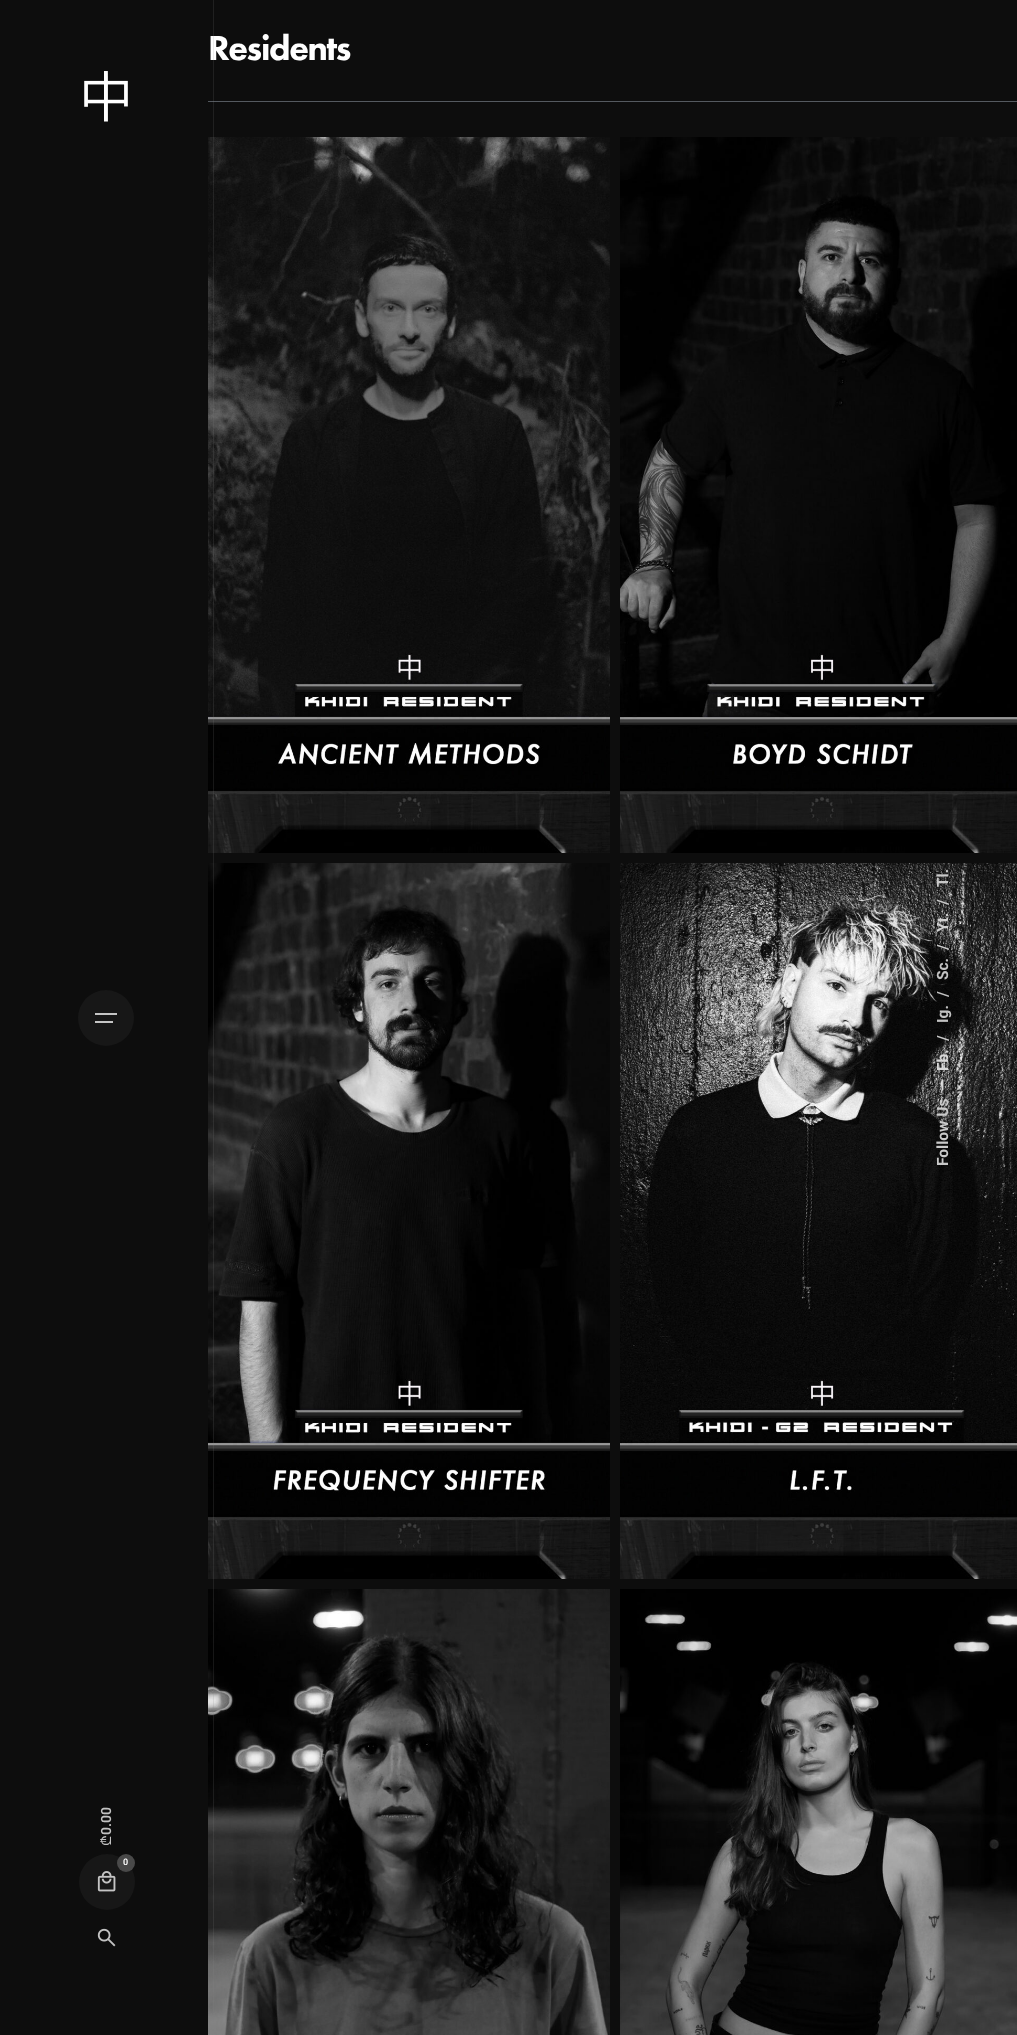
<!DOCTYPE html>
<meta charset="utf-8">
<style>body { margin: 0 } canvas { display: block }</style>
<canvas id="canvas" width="1017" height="2035"></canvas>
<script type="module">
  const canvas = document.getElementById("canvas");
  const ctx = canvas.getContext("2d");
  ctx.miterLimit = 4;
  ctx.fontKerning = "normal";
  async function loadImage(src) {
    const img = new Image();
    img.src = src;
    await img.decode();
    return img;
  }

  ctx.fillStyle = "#0d0d0d";
  ctx.fillRect(0, 0, 1017, 2035);
  ctx.letterSpacing = "-1.5px";
  ctx.font = "900 36px Futura PT";
  ctx.fillStyle = "#ffffff";
  ctx.fillText("Residents", 208, 60);
  ctx.fillStyle = "#54595f";
  ctx.fillRect(208, 101, 809, 1);
  ctx.drawImage(await loadImage("img1.png"), 208, 137, 402, 716);
  ctx.drawImage(await loadImage("img2.png"), 620, 137, 397, 716);
  ctx.drawImage(await loadImage("img3.png"), 208, 863, 402, 716);
  ctx.drawImage(await loadImage("img4.png"), 620, 863, 397, 716);
  ctx.drawImage(await loadImage("img5.png"), 208, 1589, 402, 446);
  ctx.drawImage(await loadImage("img6.png"), 620, 1589, 397, 446);
  ctx.letterSpacing = "0px";
  ctx.font = "bold 15.5px Roboto";
  ctx.fillStyle = "#c9c9c9";
  ctx.save();
  ctx.translate(948, 887);
  ctx.rotate(-90 * Math.PI / 180);
  ctx.fillText("Tl.", 0, 0);
  ctx.restore();
  ctx.save();
  ctx.translate(948, 905);
  ctx.rotate(-90 * Math.PI / 180);
  ctx.fillText("/", 0, 0);
  ctx.restore();
  ctx.fillStyle = "#d0d0d0";
  ctx.save();
  ctx.translate(948, 932);
  ctx.rotate(-90 * Math.PI / 180);
  ctx.fillText("Yt.", 0, 0);
  ctx.restore();
  ctx.fillStyle = "#c9c9c9";
  ctx.save();
  ctx.translate(948, 950);
  ctx.rotate(-90 * Math.PI / 180);
  ctx.fillText("/", 0, 0);
  ctx.restore();
  ctx.fillStyle = "#c2c2c2";
  ctx.save();
  ctx.translate(948, 980);
  ctx.rotate(-90 * Math.PI / 180);
  ctx.fillText("Sc.", 0, 0);
  ctx.restore();
  ctx.save();
  ctx.translate(948, 997);
  ctx.rotate(-90 * Math.PI / 180);
  ctx.fillText("/", 0, 0);
  ctx.restore();
  ctx.save();
  ctx.translate(948, 1023);
  ctx.rotate(-90 * Math.PI / 180);
  ctx.fillText("Ig.", 0, 0);
  ctx.restore();
  ctx.fillStyle = "#c9c9c9";
  ctx.save();
  ctx.translate(948, 1041);
  ctx.rotate(-90 * Math.PI / 180);
  ctx.fillText("/", 0, 0);
  ctx.restore();
  ctx.fillStyle = "#d7d7d7";
  ctx.save();
  ctx.translate(948, 1071);
  ctx.rotate(-90 * Math.PI / 180);
  ctx.fillText("Fb.", 0, 0);
  ctx.restore();
  ctx.save();
  ctx.translate(948, 1091);
  ctx.rotate(-90 * Math.PI / 180);
  ctx.fillText("—", 0, 0);
  ctx.restore();
  ctx.fillStyle = "#c9c9c9";
  ctx.save();
  ctx.translate(948, 1166);
  ctx.rotate(-90 * Math.PI / 180);
  ctx.fillText("Follow Us", 0, 0);
  ctx.restore();
  ctx.fillStyle = "rgba(136, 136, 137, 0.16)";
  ctx.fillRect(213, 0, 1, 2012);
  ctx.drawImage(await loadImage("img7.png"), 84, 71, 44, 51);
  ctx.fillStyle = "#171717";
  ctx.beginPath();
  ctx.arc(106, 1018, 28, 0, Math.PI * 2);
  ctx.fill();
  ctx.fillStyle = "#c5c5c5";
  ctx.fillRect(95, 1013, 22, 2);
  ctx.fillRect(95, 1021, 18, 2);
  ctx.font = "600 14px Roboto";
  ctx.fillStyle = "#c2c2c2";
  ctx.save();
  ctx.translate(111, 1835);
  ctx.rotate(-90 * Math.PI / 180);
  ctx.fillText("0.00", 0, 0);
  ctx.restore();
  ctx.font = "14px Noto Sans";
  ctx.save();
  ctx.translate(111, 1846);
  ctx.rotate(-90 * Math.PI / 180);
  ctx.fillText("₾", 0, 0);
  ctx.restore();
  ctx.fillStyle = "#171717";
  ctx.beginPath();
  ctx.arc(107, 1882, 28, 0, Math.PI * 2);
  ctx.fill();
  ctx.drawImage(await loadImage("img8.png"), 97, 1871, 19, 21);
  ctx.fillStyle = "#494949";
  ctx.beginPath();
  ctx.arc(126, 1863, 9, 0, Math.PI * 2);
  ctx.fill();
  ctx.font = "600 9px Roboto";
  ctx.fillStyle = "#ffffff";
  ctx.fillText("0", 123, 1865);
  ctx.drawImage(await loadImage("img9.png"), 97, 1928, 19, 19);
</script>
